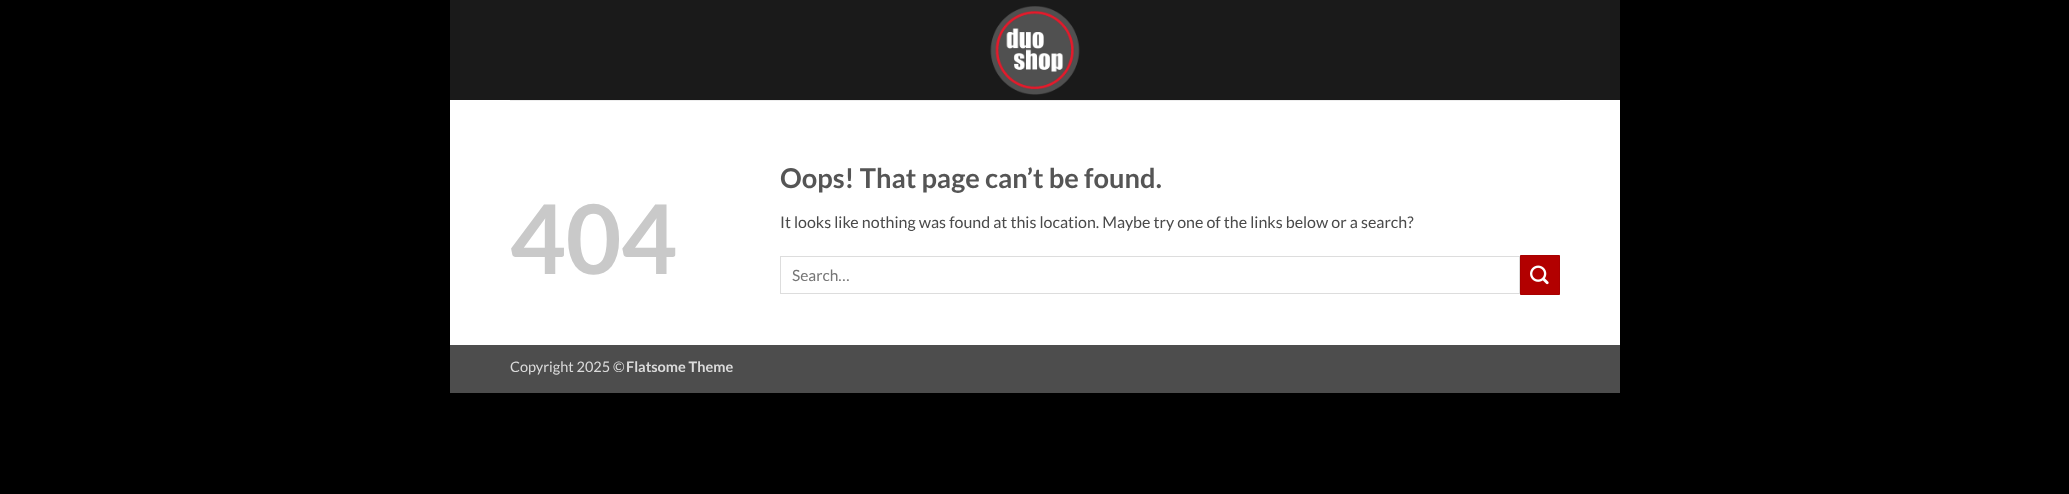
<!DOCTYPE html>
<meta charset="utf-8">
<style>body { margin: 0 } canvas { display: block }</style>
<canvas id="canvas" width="2069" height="494"></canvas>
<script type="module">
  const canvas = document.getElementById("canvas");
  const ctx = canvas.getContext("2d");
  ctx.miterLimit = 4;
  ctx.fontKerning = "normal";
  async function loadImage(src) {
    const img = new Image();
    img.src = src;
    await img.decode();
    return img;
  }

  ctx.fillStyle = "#000000";
  ctx.fillRect(0, 0, 2069, 494);
  ctx.fillStyle = "#ffffff";
  ctx.fillRect(450, 100, 1170, 245);
  ctx.fillStyle = "#1a1a1a";
  ctx.fillRect(450, 0, 1170, 100);
  ctx.drawImage(await loadImage("img1.png"), 990, 6, 90, 89);
  ctx.fillStyle = "#ededed";
  ctx.fillRect(510, 100, 1050, 1);
  ctx.font = "bold 96px Lato";
  ctx.fillStyle = "#c9c9c9";
  ctx.fillText("404", 510, 274);
  ctx.font = "bold 27.25px Lato";
  ctx.fillStyle = "#555555";
  ctx.fillText("Oops! That page can’t be found.", 780, 188);
  ctx.font = "16px Lato";
  ctx.fillStyle = "#4a4a4a";
  ctx.fillText("It looks like nothing was found at this location. Maybe try one of the links below or a search?", 780, 228);
  ctx.strokeStyle = "#dddddd";
  ctx.strokeRect(780.5, 256.5, 739, 37);
  ctx.font = "15.5px Lato";
  ctx.fillStyle = "#757575";
  ctx.fillText("Search…", 792, 281);
  ctx.fillStyle = "#b20000";
  ctx.beginPath();
  ctx.rect(1520.5, 255.5, 39, 39);
  ctx.fill();
  ctx.strokeStyle = "#a90000";
  ctx.stroke();
  ctx.drawImage(await loadImage("img2.png"), 1530, 265, 19, 20);
  ctx.fillStyle = "#4d4d4d";
  ctx.fillRect(450, 345, 1170, 48);
  ctx.font = "14.5px Lato";
  ctx.fillStyle = "#dbdbdb";
  ctx.fillText("Copyright 2025 ©", 510, 372);
  ctx.font = "bold 14.5px Lato";
  ctx.fillText("Flatsome Theme", 626, 372);
</script>
